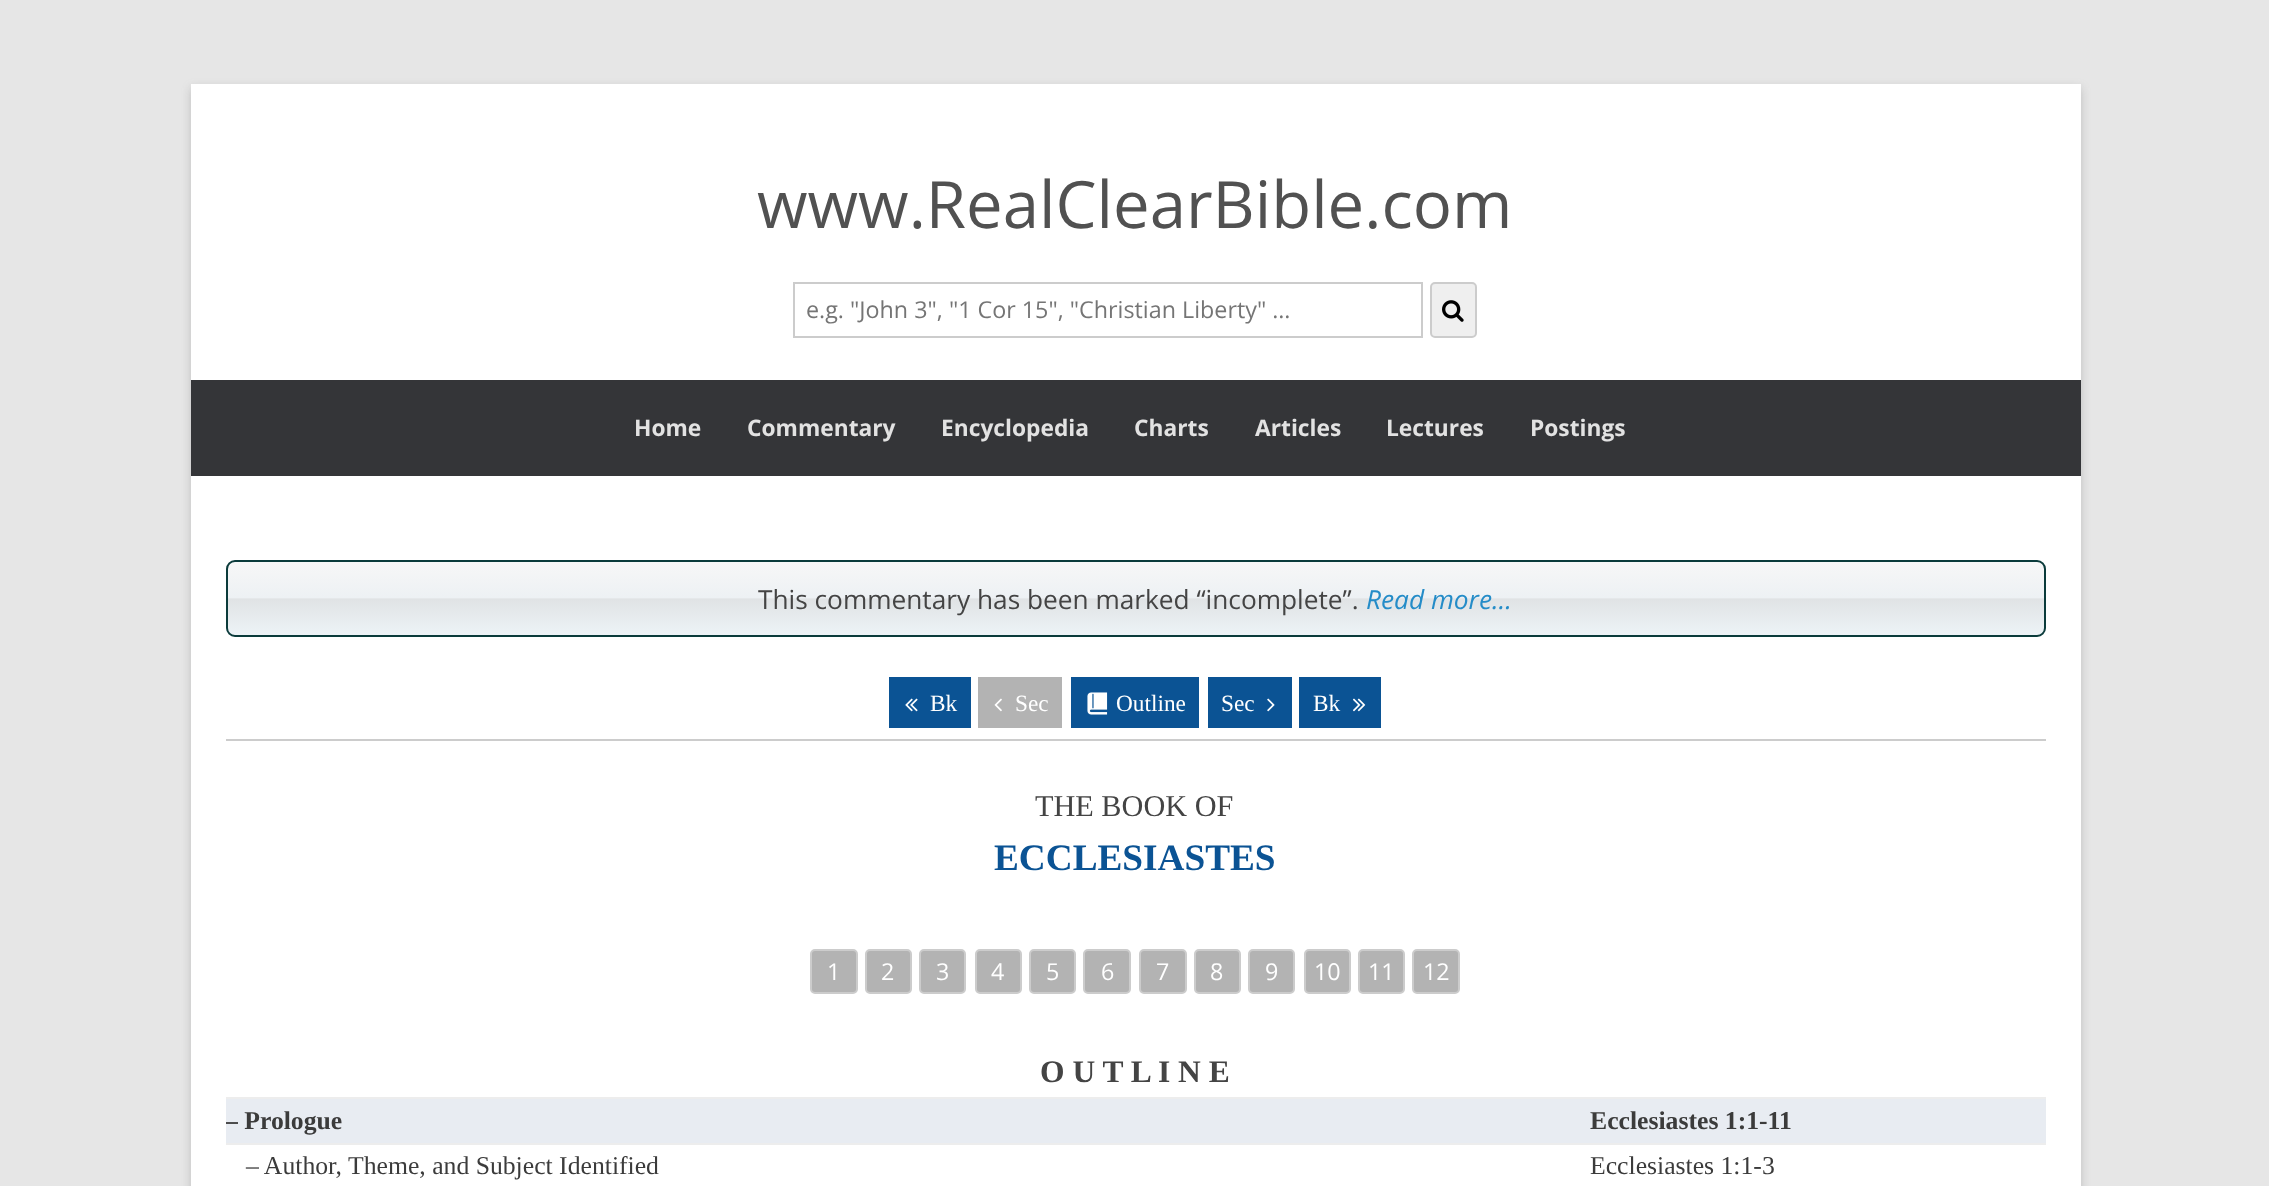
<!DOCTYPE html>
<meta charset="utf-8">
<style>body { margin: 0 } canvas { display: block }</style>
<canvas id="canvas" width="2269" height="1186"></canvas>
<script type="module">
  const canvas = document.getElementById("canvas");
  const ctx = canvas.getContext("2d");
  ctx.miterLimit = 4;
  ctx.fontKerning = "normal";
  async function loadImage(src) {
    const img = new Image();
    img.src = src;
    await img.decode();
    return img;
  }
  let gradient;

  ctx.fillStyle = "#e6e6e6";
  ctx.fillRect(0, 0, 2269, 1186);
  ctx.fillStyle = "rgba(100, 100, 100, 0.3)";
  ctx.filter = "blur(5px)";
  ctx.beginPath();
  ctx.rect(191, 88, 1890, 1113);
  ctx.fill();
  ctx.filter = "none";
  ctx.fillStyle = "#ffffff";
  ctx.fillRect(191, 84, 1890, 1102);
  ctx.font = "65.25px Open Sans";
  ctx.fillStyle = "#515151";
  ctx.fillText("www.RealClearBible.com", 757, 228);
  ctx.strokeStyle = "#cccccc";
  ctx.lineWidth = 2;
  ctx.strokeRect(794, 283, 628, 54);
  ctx.font = "23.3px Open Sans";
  ctx.fillStyle = "#757575";
  ctx.fillText("e.g. \"John 3\", \"1 Cor 15\", \"Christian Liberty\" …", 806, 318);
  ctx.fillStyle = "#efefef";
  ctx.beginPath();
  ctx.roundRect(1431, 283, 45, 54, 4);
  ctx.fill();
  ctx.stroke();
  ctx.drawImage(await loadImage("img1.png"), 1442, 300, 22, 22);
  ctx.fillStyle = "#343538";
  ctx.fillRect(191, 380, 1890, 96);
  ctx.font = "bold 22.75px Open Sans";
  ctx.fillStyle = "#e2e2e2";
  ctx.fillText("Home", 634, 436);
  ctx.fillText("Commentary", 747, 436);
  ctx.fillText("Encyclopedia", 941, 436);
  ctx.fillText("Charts", 1134, 436);
  ctx.fillText("Articles", 1255, 436);
  ctx.fillText("Lectures", 1386, 436);
  ctx.fillText("Postings", 1530, 436);
  ctx.save();
  ctx.beginPath();
  ctx.roundRect(226, 560, 1820, 77, 9);
  ctx.clip();
  gradient = ctx.createLinearGradient(1136, 562, 1136, 635);
  gradient.addColorStop(0, "#f7f7f7");
  gradient.addColorStop(0.49, "#edf1f4");
  gradient.addColorStop(0.5, "#e5e8ea");
  gradient.addColorStop(0.51, "#e0e3e5");
  gradient.addColorStop(1, "#edf3f7");
  ctx.fillStyle = gradient;
  ctx.fillRect(226, 562, 1820, 73);
  ctx.restore();
  ctx.beginPath();
  ctx.roundRect(227, 561, 1818, 75, 8);
  ctx.strokeStyle = "#0b3b3b";
  ctx.stroke();
  ctx.font = "26.25px Open Sans";
  ctx.fillStyle = "#444444";
  ctx.fillText("This commentary has been marked “incomplete”.", 758, 609);
  ctx.font = "italic 26.25px Open Sans";
  ctx.fillStyle = "#248cc8";
  ctx.fillText("Read more…", 1366, 609);
  ctx.fillStyle = "#cccccc";
  ctx.fillRect(226, 739, 1820, 2);
  ctx.fillStyle = "#0b5394";
  ctx.fillRect(889, 677, 82, 51);
  ctx.drawImage(await loadImage("img2.png"), 905, 698, 13, 14);
  ctx.font = "23.3px Liberation Serif";
  ctx.fillStyle = "#ffffff";
  ctx.fillText("Bk", 930, 711);
  ctx.fillStyle = "#b3b3b3";
  ctx.fillRect(978, 677, 84, 51);
  ctx.drawImage(await loadImage("img3.png"), 994, 698, 8, 14);
  ctx.fillStyle = "#ffffff";
  ctx.fillText("Sec", 1015, 711);
  ctx.fillStyle = "#0b5394";
  ctx.fillRect(1071, 677, 128, 51);
  ctx.drawImage(await loadImage("img4.png"), 1087, 692, 21, 23);
  ctx.fillStyle = "#ffffff";
  ctx.fillText("Outline", 1116, 711);
  ctx.fillStyle = "#0b5394";
  ctx.fillRect(1208, 677, 84, 51);
  ctx.fillStyle = "#ffffff";
  ctx.fillText("Sec", 1221, 711);
  ctx.drawImage(await loadImage("img5.png"), 1267, 698, 8, 14);
  ctx.fillStyle = "#0b5394";
  ctx.fillRect(1299, 677, 82, 51);
  ctx.fillStyle = "#ffffff";
  ctx.fillText("Bk", 1313, 711);
  ctx.drawImage(await loadImage("img6.png"), 1353, 698, 13, 14);
  ctx.font = "30.25px Liberation Serif";
  ctx.fillStyle = "#444444";
  ctx.fillText("THE BOOK OF", 1035, 816);
  ctx.font = "bold 37.25px Liberation Serif";
  ctx.fillStyle = "#0b5394";
  ctx.fillText("ECCLESIASTES", 994, 870);
  ctx.fillStyle = "#b3b3b3";
  ctx.beginPath();
  ctx.roundRect(811, 950, 46, 43, 4);
  ctx.fill();
  ctx.strokeStyle = "#cccccc";
  ctx.stroke();
  ctx.font = "23.3px Open Sans";
  ctx.fillStyle = "#ffffff";
  ctx.fillText("1", 827, 980);
  ctx.fillStyle = "#b3b3b3";
  ctx.beginPath();
  ctx.roundRect(866, 950, 45, 43, 4);
  ctx.fill();
  ctx.stroke();
  ctx.fillStyle = "#ffffff";
  ctx.fillText("2", 881, 980);
  ctx.fillStyle = "#b3b3b3";
  ctx.beginPath();
  ctx.roundRect(920, 950, 45, 43, 4);
  ctx.fill();
  ctx.stroke();
  ctx.fillStyle = "#ffffff";
  ctx.fillText("3", 936, 980);
  ctx.fillStyle = "#b3b3b3";
  ctx.beginPath();
  ctx.roundRect(976, 950, 45, 43, 4);
  ctx.fill();
  ctx.stroke();
  ctx.fillStyle = "#ffffff";
  ctx.fillText("4", 991, 980);
  ctx.fillStyle = "#b3b3b3";
  ctx.beginPath();
  ctx.roundRect(1030, 950, 45, 43, 4);
  ctx.fill();
  ctx.stroke();
  ctx.fillStyle = "#ffffff";
  ctx.fillText("5", 1046, 980);
  ctx.fillStyle = "#b3b3b3";
  ctx.beginPath();
  ctx.roundRect(1084, 950, 46, 43, 4);
  ctx.fill();
  ctx.stroke();
  ctx.fillStyle = "#ffffff";
  ctx.fillText("6", 1101, 980);
  ctx.fillStyle = "#b3b3b3";
  ctx.beginPath();
  ctx.roundRect(1140, 950, 46, 43, 4);
  ctx.fill();
  ctx.stroke();
  ctx.fillStyle = "#ffffff";
  ctx.fillText("7", 1156, 980);
  ctx.fillStyle = "#b3b3b3";
  ctx.beginPath();
  ctx.roundRect(1195, 950, 45, 43, 4);
  ctx.fill();
  ctx.stroke();
  ctx.fillStyle = "#ffffff";
  ctx.fillText("8", 1210, 980);
  ctx.fillStyle = "#b3b3b3";
  ctx.beginPath();
  ctx.roundRect(1249, 950, 45, 43, 4);
  ctx.fill();
  ctx.stroke();
  ctx.fillStyle = "#ffffff";
  ctx.fillText("9", 1265, 980);
  ctx.fillStyle = "#b3b3b3";
  ctx.beginPath();
  ctx.roundRect(1305, 950, 45, 43, 4);
  ctx.fill();
  ctx.stroke();
  ctx.fillStyle = "#ffffff";
  ctx.fillText("10", 1314, 980);
  ctx.fillStyle = "#b3b3b3";
  ctx.beginPath();
  ctx.roundRect(1359, 950, 45, 43, 4);
  ctx.fill();
  ctx.stroke();
  ctx.fillStyle = "#ffffff";
  ctx.fillText("11", 1368, 980);
  ctx.fillStyle = "#b3b3b3";
  ctx.beginPath();
  ctx.roundRect(1413, 950, 46, 43, 4);
  ctx.fill();
  ctx.stroke();
  ctx.fillStyle = "#ffffff";
  ctx.fillText("12", 1423, 980);
  ctx.font = "bold 31.5px Liberation Serif";
  ctx.fillStyle = "#444444";
  ctx.fillText("O U T L I N E", 1040, 1082);
  ctx.fillStyle = "#e8ecf2";
  ctx.fillRect(226, 1099, 1820, 44);
  ctx.fillStyle = "#ededed";
  ctx.fillRect(226, 1097, 1820, 2);
  ctx.save();
  ctx.beginPath();
  ctx.rect(226, 560, 1820, 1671);
  ctx.clip();
  ctx.font = "bold 25.7px Liberation Serif";
  ctx.fillStyle = "#3b3b3b";
  ctx.fillText("– Prologue", 225, 1129);
  ctx.restore();
  ctx.font = "bold 25.7px Liberation Serif";
  ctx.fillStyle = "#3b3b3b";
  ctx.fillText("Ecclesiastes 1:1-11", 1590, 1129);
  ctx.fillStyle = "#ededed";
  ctx.fillRect(226, 1143, 1820, 2);
  ctx.font = "25.7px Liberation Serif";
  ctx.fillStyle = "#3b3b3b";
  ctx.fillText("– Author, Theme, and Subject Identified", 246, 1174);
  ctx.fillText("Ecclesiastes 1:1-3", 1590, 1174);
</script>
